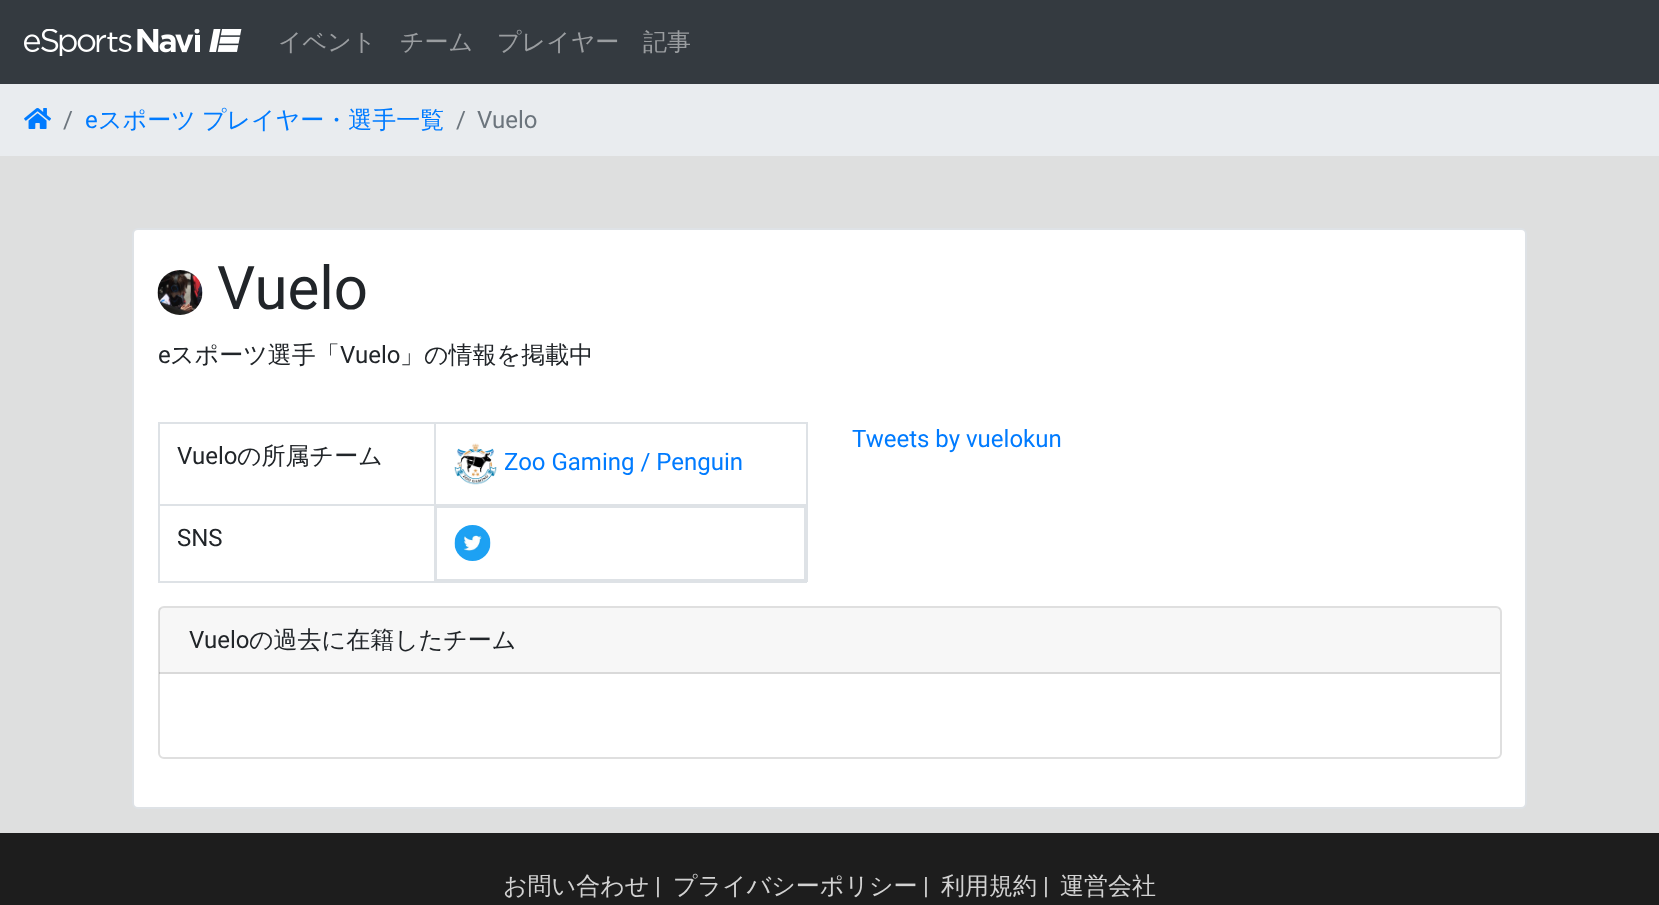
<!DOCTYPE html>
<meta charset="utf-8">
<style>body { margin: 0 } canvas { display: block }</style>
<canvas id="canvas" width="1659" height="905"></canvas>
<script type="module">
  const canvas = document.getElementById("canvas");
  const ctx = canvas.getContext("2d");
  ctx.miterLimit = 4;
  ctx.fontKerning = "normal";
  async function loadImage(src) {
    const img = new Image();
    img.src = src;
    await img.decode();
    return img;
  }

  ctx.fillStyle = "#dedfdf";
  ctx.fillRect(0, 0, 1659, 905);
  ctx.fillStyle = "#343a40";
  ctx.fillRect(0, 0, 1659, 84);
  ctx.drawImage(await loadImage("img1.png"), 24, 29, 218, 27);
  ctx.font = "500 24px WenQuanYi Zen Hei";
  ctx.fillStyle = "#9a9da0";
  ctx.fillText("イベント", 278, 50);
  ctx.fillText("チーム", 400, 50);
  ctx.fillText("プレイヤー", 497, 50);
  ctx.fillText("記事", 643, 50);
  ctx.fillStyle = "#e9ecef";
  ctx.fillRect(0, 84, 1659, 72);
  ctx.drawImage(await loadImage("img2.png"), 24, 108, 27, 21);
  ctx.font = "24px Roboto";
  ctx.fillStyle = "#6c757d";
  ctx.fillText("/", 63, 128);
  ctx.fillStyle = "#007bff";
  ctx.fillText("e", 85, 128);
  ctx.wordSpacing = "-1px";
  ctx.font = "500 24px WenQuanYi Zen Hei";
  ctx.fillText("スポーツ プレイヤー・選手一覧", 98, 128);
  ctx.wordSpacing = "0px";
  ctx.font = "24px Roboto";
  ctx.fillStyle = "#6c757d";
  ctx.fillText("/", 456, 128);
  ctx.fillText("Vuelo", 477, 128);
  ctx.fillStyle = "#ffffff";
  ctx.beginPath();
  ctx.roundRect(133, 229, 1393, 579, 5);
  ctx.fill();
  ctx.strokeStyle = "#dee2e6";
  ctx.lineWidth = 2;
  ctx.stroke();
  ctx.drawImage(await loadImage("img3.png"), 157, 270, 46, 45);
  ctx.font = "60px Roboto";
  ctx.fillStyle = "#212529";
  ctx.fillText("Vuelo", 217, 309);
  ctx.font = "24px Roboto";
  ctx.fillText("e", 158, 363);
  ctx.font = "500 24px WenQuanYi Zen Hei";
  ctx.fillText("スポーツ選手「", 170, 363);
  ctx.font = "24px Roboto";
  ctx.fillText("Vuelo", 340, 363);
  ctx.font = "500 24px WenQuanYi Zen Hei";
  ctx.fillText("」の情報を掲載中", 400, 363);
  ctx.font = "24px Roboto";
  ctx.fillStyle = "#007bff";
  ctx.fillText("Tweets by vuelokun", 852, 447);
  ctx.fillStyle = "#dee2e6";
  ctx.fillRect(158, 422, 649, 2);
  ctx.fillRect(806, 422, 2, 160);
  ctx.fillRect(158, 581, 649, 2);
  ctx.fillRect(158, 422, 2, 160);
  ctx.fillStyle = "#212529";
  ctx.fillText("Vuelo", 177, 464);
  ctx.font = "500 24px WenQuanYi Zen Hei";
  ctx.fillText("の所属チーム", 237, 464);
  ctx.fillStyle = "#dee2e6";
  ctx.fillRect(158, 504, 277, 2);
  ctx.strokeRect(436, 507, 369, 73);
  ctx.fillRect(434, 504, 2, 78);
  ctx.fillRect(434, 504, 373, 2);
  ctx.fillRect(434, 422, 2, 84);
  ctx.drawImage(await loadImage("img4.png"), 454, 443, 43, 42);
  ctx.font = "24px Roboto";
  ctx.fillStyle = "#007bff";
  ctx.fillText("Zoo Gaming / Penguin", 504, 470);
  ctx.fillStyle = "#212529";
  ctx.fillText("SNS", 177, 546);
  ctx.drawImage(await loadImage("img5.png"), 454, 525, 37, 36);
  ctx.beginPath();
  ctx.roundRect(159, 607, 1342, 151, 5);
  ctx.strokeStyle = "#dfdfdf";
  ctx.stroke();
  ctx.fillStyle = "rgba(0, 0, 0, 0.03)";
  ctx.fillRect(159, 608, 1341, 66);
  ctx.fillStyle = "rgba(0, 0, 0, 0.12)";
  ctx.fillRect(159, 672, 1341, 2);
  ctx.fillStyle = "#212529";
  ctx.fillText("Vuelo", 189, 648);
  ctx.font = "500 24px WenQuanYi Zen Hei";
  ctx.fillText("の過去に在籍したチーム", 249, 648);
  ctx.fillStyle = "#1d1d1d";
  ctx.fillRect(0, 833, 1659, 72);
  ctx.fillStyle = "#d2d2d2";
  ctx.fillText("お問い合わせ", 503, 894);
  ctx.font = "24px Roboto";
  ctx.fillText("|", 655, 894);
  ctx.font = "500 24px WenQuanYi Zen Hei";
  ctx.fillText("プライバシーポリシー", 673, 894);
  ctx.font = "24px Roboto";
  ctx.fillText("|", 923, 894);
  ctx.font = "500 24px WenQuanYi Zen Hei";
  ctx.fillText("利用規約", 941, 894);
  ctx.font = "24px Roboto";
  ctx.fillText("|", 1043, 894);
  ctx.font = "500 24px WenQuanYi Zen Hei";
  ctx.fillText("運営会社", 1060, 894);
</script>
